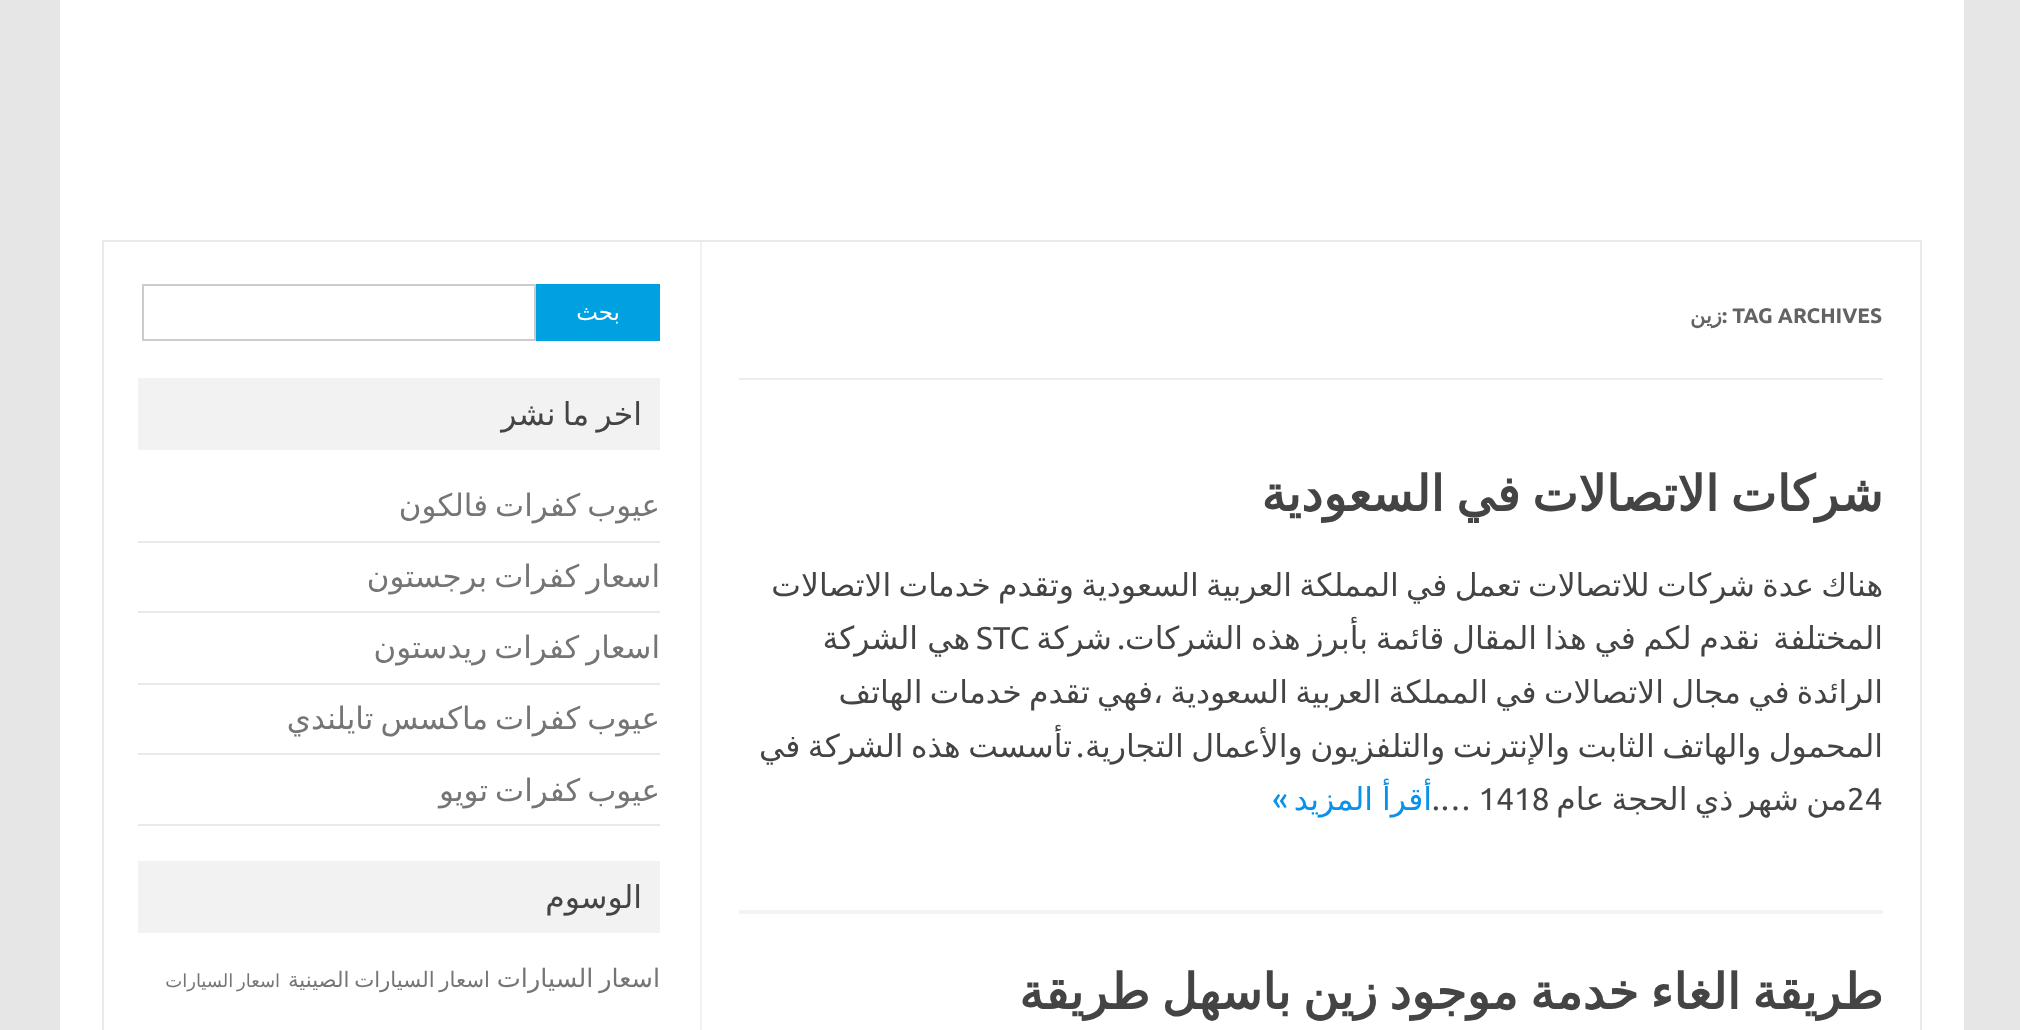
<!DOCTYPE html>
<meta charset="utf-8">
<style>body { margin: 0 } canvas { display: block }</style>
<canvas id="canvas" width="2020" height="1030"></canvas>
<script type="module">
  const canvas = document.getElementById("canvas");
  const ctx = canvas.getContext("2d");
  ctx.miterLimit = 4;
  ctx.fontKerning = "normal";

  ctx.fillStyle = "#e6e6e6";
  ctx.fillRect(0, 0, 2020, 1030);
  ctx.fillStyle = "#ffffff";
  ctx.fillRect(60, 0, 1904, 1030);
  ctx.strokeStyle = "#e9e9e9";
  ctx.lineWidth = 2;
  ctx.strokeRect(103, 241, 1818, 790);
  ctx.fillStyle = "#f1f1f1";
  ctx.fillRect(700, 242, 2, 788);
  ctx.fillStyle = "#ededed";
  ctx.fillRect(739, 378, 1144, 2);
  ctx.font = "bold 21px Ubuntu";
  ctx.fillStyle = "#636363";
  ctx.fillText(": TAG ARCHIVES", 1722, 323);
  ctx.direction = "rtl";
  ctx.font = "bold 21px DejaVu Sans";
  ctx.fillText("زين", 1722, 323);
  ctx.fillStyle = "#f3f3f3";
  ctx.fillRect(739, 910, 1144, 4);
  ctx.wordSpacing = "-3.75px";
  ctx.font = "bold 49px DejaVu Sans";
  ctx.fillStyle = "#444444";
  ctx.fillText("شركات الاتصالات في السعودية", 1883, 511);
  ctx.wordSpacing = "-2.75px";
  ctx.font = "31.5px DejaVu Sans";
  ctx.fillText("هناك عدة شركات للاتصالات تعمل في المملكة العربية السعودية وتقدم خدمات الاتصالات", 1883, 596);
  ctx.wordSpacing = "0px";
  ctx.fillText("المختلفة", 1883, 649);
  ctx.wordSpacing = "-2.25px";
  ctx.fillText("نقدم لكم في هذا المقال قائمة بأبرز هذه الشركات", 1760, 649);
  ctx.wordSpacing = "0px";
  ctx.font = "31.5px Ubuntu";
  ctx.fillText(".", 1125, 649);
  ctx.font = "31.5px DejaVu Sans";
  ctx.fillText("شركة", 1112, 649);
  ctx.direction = "ltr";
  ctx.font = "31.5px Ubuntu";
  ctx.fillText("STC", 976, 649);
  ctx.wordSpacing = "-1px";
  ctx.direction = "rtl";
  ctx.font = "31.5px DejaVu Sans";
  ctx.fillText("هي الشركة", 970, 649);
  ctx.wordSpacing = "-2.75px";
  ctx.fillText("الرائدة في مجال الاتصالات في المملكة العربية السعودية ،فهي تقدم خدمات الهاتف", 1883, 703);
  ctx.wordSpacing = "-2.5px";
  ctx.fillText("المحمول والهاتف الثابت والإنترنت والتلفزيون والأعمال التجارية", 1883, 757);
  ctx.fillText("تأسست هذه الشركة في", 1072, 757);
  ctx.wordSpacing = "0px";
  ctx.font = "31.5px Ubuntu";
  ctx.fillText(".", 1084, 757);
  ctx.wordSpacing = "-2.75px";
  ctx.font = "31.5px DejaVu Sans";
  ctx.fillText("من شهر ذي الحجة عام", 1847, 810);
  ctx.wordSpacing = "0px";
  ctx.direction = "ltr";
  ctx.font = "31.5px Ubuntu";
  ctx.fillText("24", 1847, 810);
  ctx.fillText(".… 1418", 1432, 810);
  ctx.wordSpacing = "-1px";
  ctx.direction = "rtl";
  ctx.font = "31.5px DejaVu Sans";
  ctx.fillStyle = "#0b91ea";
  ctx.fillText("أقرأ المزيد", 1432, 810);
  ctx.wordSpacing = "0px";
  ctx.font = "31.5px Ubuntu";
  ctx.fillText("»", 1288, 810);
  ctx.wordSpacing = "-3.75px";
  ctx.font = "bold 49px DejaVu Sans";
  ctx.fillStyle = "#444444";
  ctx.fillText("طريقة الغاء خدمة موجود زين باسهل طريقة", 1883, 1009);
  ctx.fillStyle = "#00a1e0";
  ctx.fillRect(536, 284, 124, 57);
  ctx.wordSpacing = "0px";
  ctx.font = "23px DejaVu Sans";
  ctx.fillStyle = "#ffffff";
  ctx.fillText("بحث", 620, 320);
  ctx.strokeStyle = "#cccccc";
  ctx.strokeRect(143, 285, 392, 55);
  ctx.fillStyle = "#f2f2f2";
  ctx.fillRect(138, 378, 522, 72);
  ctx.wordSpacing = "-2.75px";
  ctx.font = "31.5px DejaVu Sans";
  ctx.fillStyle = "#444444";
  ctx.fillText("اخر ما نشر", 642, 425);
  ctx.fillStyle = "#e9e9e9";
  ctx.fillRect(138, 541, 522, 2);
  ctx.font = "30.9px DejaVu Sans";
  ctx.fillStyle = "#757575";
  ctx.fillText("عيوب كفرات فالكون", 660, 516);
  ctx.fillStyle = "#e9e9e9";
  ctx.fillRect(138, 611, 522, 2);
  ctx.fillStyle = "#757575";
  ctx.fillText("اسعار كفرات برجستون", 660, 587);
  ctx.fillStyle = "#e9e9e9";
  ctx.fillRect(138, 683, 522, 2);
  ctx.fillStyle = "#757575";
  ctx.fillText("اسعار كفرات ريدستون", 660, 658);
  ctx.fillStyle = "#e9e9e9";
  ctx.fillRect(138, 753, 522, 2);
  ctx.fillStyle = "#757575";
  ctx.fillText("عيوب كفرات ماكسس تايلندي", 660, 729);
  ctx.fillStyle = "#e9e9e9";
  ctx.fillRect(138, 824, 522, 2);
  ctx.fillStyle = "#757575";
  ctx.fillText("عيوب كفرات تويو", 660, 801);
  ctx.fillStyle = "#f2f2f2";
  ctx.fillRect(138, 861, 522, 72);
  ctx.wordSpacing = "0px";
  ctx.font = "31.5px DejaVu Sans";
  ctx.fillStyle = "#444444";
  ctx.fillText("الوسوم", 642, 908);
  ctx.wordSpacing = "-2.25px";
  ctx.font = "25.5px DejaVu Sans";
  ctx.fillStyle = "#757575";
  ctx.fillText("اسعار السيارات", 660, 987);
  ctx.wordSpacing = "-2px";
  ctx.font = "21.25px DejaVu Sans";
  ctx.fillText("اسعار السيارات الصينية", 490, 987);
  ctx.font = "18px DejaVu Sans";
  ctx.fillText("اسعار السيارات", 280, 987);
</script>
